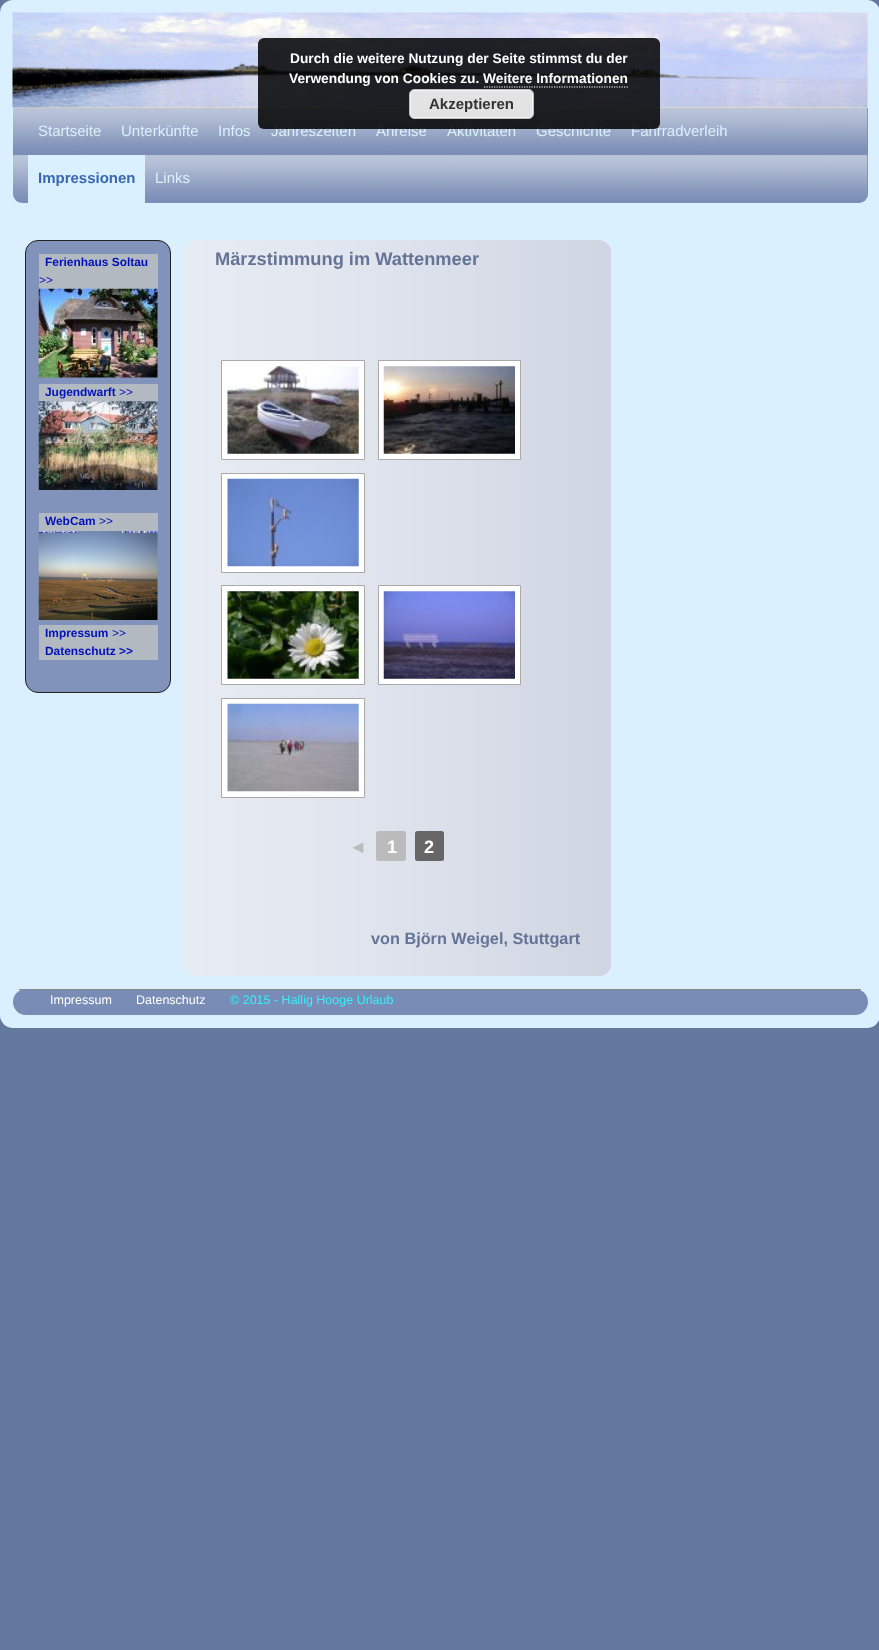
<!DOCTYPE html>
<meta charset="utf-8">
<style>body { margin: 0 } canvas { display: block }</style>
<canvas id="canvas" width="879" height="1650"></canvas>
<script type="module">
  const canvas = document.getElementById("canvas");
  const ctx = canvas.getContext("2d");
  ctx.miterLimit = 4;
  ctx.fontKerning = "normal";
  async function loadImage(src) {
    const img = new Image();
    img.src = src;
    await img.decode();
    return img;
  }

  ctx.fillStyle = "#62799d";
  ctx.fillRect(0, 0, 879, 1650);
  ctx.fillStyle = "#daf0fe";
  ctx.beginPath();
  ctx.roundRect(0, 0, 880, 1028, 13);
  ctx.fill();
  ctx.fillStyle = "#ffdead";
  ctx.beginPath();
  ctx.roundRect(13, 13, 855, 95, 13);
  ctx.fill();
  ctx.drawImage(await loadImage("img1.png"), 12, 12, 856, 96);
  ctx.fillStyle = "#798cb5";
  ctx.beginPath();
  ctx.roundRect(13, 108, 855, 95, [0, 0, 9, 9]);
  ctx.fill();
  ctx.drawImage(await loadImage("img2.png"), 12, 108, 856, 95);
  ctx.font = "15px Liberation Sans";
  ctx.fillStyle = "#daf0fe";
  ctx.fillText("Jahreszeiten", 271, 136);
  ctx.fillText("Anreise", 376, 136);
  ctx.fillText("Aktivitäten", 447, 136);
  ctx.fillText("Geschichte", 536, 136);
  ctx.fillText("Fahrradverleih", 631, 136);
  ctx.fillStyle = "rgba(0, 0, 0, 0.85)";
  ctx.beginPath();
  ctx.roundRect(258, 38, 402, 91, 6);
  ctx.fill();
  ctx.font = "bold 13.75px Liberation Sans";
  ctx.fillStyle = "#ffffff";
  ctx.fillText("Durch die weitere Nutzung der Seite stimmst du der", 290, 63);
  ctx.fillText("Verwendung von Cookies zu. Weitere Informationen", 289, 83);
  ctx.beginPath();
  ctx.moveTo(484, 87);
  ctx.lineTo(629, 87);
  ctx.strokeStyle = "#ffffff";
  ctx.lineWidth = 1.2;
  ctx.setLineDash([1.25, 1.25]);
  ctx.stroke();
  ctx.fillStyle = "#e3e3e3";
  ctx.beginPath();
  ctx.roundRect(409, 89, 125, 30, 6);
  ctx.fill();
  ctx.beginPath();
  ctx.roundRect(410.5, 90.5, 122, 27, 4.5);
  ctx.strokeStyle = "#f6f6f6";
  ctx.lineWidth = 1;
  ctx.setLineDash([]);
  ctx.stroke();
  ctx.beginPath();
  ctx.roundRect(409.5, 89.5, 124, 29, 5.5);
  ctx.strokeStyle = "#bbbbbb";
  ctx.stroke();
  ctx.font = "bold 15px Liberation Sans";
  ctx.fillStyle = "#333333";
  ctx.fillText("Akzeptieren", 429, 109);
  ctx.font = "15px Liberation Sans";
  ctx.fillStyle = "#daf0fe";
  ctx.fillText("Startseite", 38, 136);
  ctx.fillText("Unterkünfte", 121, 136);
  ctx.fillText("Infos", 218, 136);
  ctx.fillRect(28, 155, 117, 48);
  ctx.font = "bold 15px Liberation Sans";
  ctx.fillStyle = "#3967b1";
  ctx.fillText("Impressionen", 38, 183);
  ctx.font = "15px Liberation Sans";
  ctx.fillStyle = "#daf0fe";
  ctx.fillText("Links", 155, 183);
  ctx.fillStyle = "#8193ba";
  ctx.beginPath();
  ctx.roundRect(25.5, 240.5, 145, 452, 12.5);
  ctx.fill();
  ctx.strokeStyle = "#222222";
  ctx.stroke();
  ctx.fillStyle = "#b3b9c1";
  ctx.fillRect(39, 254, 119, 35);
  ctx.font = "bold 11.9px Liberation Sans";
  ctx.fillStyle = "#0011bb";
  ctx.fillText("Ferienhaus Soltau", 45, 266);
  ctx.font = "11.9px Liberation Sans";
  ctx.fillText(">>", 39, 284);
  ctx.drawImage(await loadImage("img3.png"), 38, 288, 120, 90);
  ctx.fillStyle = "#b3b9c1";
  ctx.fillRect(39, 384, 119, 17);
  ctx.font = "bold 11.9px Liberation Sans";
  ctx.fillStyle = "#0011bb";
  ctx.fillText("Jugendwarft", 45, 396);
  ctx.font = "11.9px Liberation Sans";
  ctx.fillText(">>", 119, 396);
  ctx.drawImage(await loadImage("img4.png"), 38, 401, 120, 89);
  ctx.fillStyle = "#b3b9c1";
  ctx.fillRect(39, 513, 119, 18);
  ctx.font = "bold 11.9px Liberation Sans";
  ctx.fillStyle = "#0011bb";
  ctx.fillText("WebCam", 45, 525);
  ctx.font = "11.9px Liberation Sans";
  ctx.fillText(">>", 99, 525);
  ctx.drawImage(await loadImage("img5.png"), 38, 531, 120, 89);
  ctx.fillStyle = "#b3b9c1";
  ctx.fillRect(39, 625, 119, 35);
  ctx.font = "bold 11.9px Liberation Sans";
  ctx.fillStyle = "#0011bb";
  ctx.fillText("Impressum", 45, 637);
  ctx.font = "11.9px Liberation Sans";
  ctx.fillText(">>", 112, 637);
  ctx.font = "bold 11.9px Liberation Sans";
  ctx.fillText("Datenschutz >>", 45, 655);
  ctx.drawImage(await loadImage("img6.png"), 184, 240, 427, 736);
  ctx.font = "bold 18.25px Liberation Sans";
  ctx.fillStyle = "#657496";
  ctx.fillText("Märzstimmung im Wattenmeer", 215, 265);
  ctx.fillStyle = "#ffffff";
  ctx.beginPath();
  ctx.rect(221.5, 360.5, 143, 99);
  ctx.fill();
  ctx.strokeStyle = "#a9a9a9";
  ctx.stroke();
  ctx.drawImage(await loadImage("img7.png"), 227, 366, 132, 88);
  ctx.beginPath();
  ctx.rect(378.5, 360.5, 142, 99);
  ctx.fill();
  ctx.stroke();
  ctx.drawImage(await loadImage("img8.png"), 383, 366, 132, 88);
  ctx.beginPath();
  ctx.rect(221.5, 473.5, 143, 99);
  ctx.fill();
  ctx.stroke();
  ctx.drawImage(await loadImage("img9.png"), 227, 478, 132, 89);
  ctx.beginPath();
  ctx.rect(221.5, 585.5, 143, 99);
  ctx.fill();
  ctx.stroke();
  ctx.drawImage(await loadImage("img10.png"), 227, 591, 132, 88);
  ctx.beginPath();
  ctx.rect(378.5, 585.5, 142, 99);
  ctx.fill();
  ctx.stroke();
  ctx.drawImage(await loadImage("img11.png"), 383, 591, 132, 88);
  ctx.beginPath();
  ctx.rect(221.5, 698.5, 143, 99);
  ctx.fill();
  ctx.stroke();
  ctx.drawImage(await loadImage("img12.png"), 227, 703, 132, 89);
  ctx.font = "bold 18px Liberation Sans";
  ctx.fillStyle = "#bbbbbb";
  ctx.fillText("◄", 349, 853);
  ctx.beginPath();
  ctx.roundRect(376, 831, 30, 30, 2.5);
  ctx.fill();
  ctx.fillStyle = "#ffffff";
  ctx.fillText("1", 387, 853);
  ctx.fillStyle = "#666666";
  ctx.beginPath();
  ctx.roundRect(415, 831, 29, 30, 2.5);
  ctx.fill();
  ctx.fillStyle = "#ffffff";
  ctx.fillText("2", 424, 853);
  ctx.font = "bold 16.25px Liberation Sans";
  ctx.fillStyle = "#657496";
  ctx.fillText("von Björn Weigel, Stuttgart", 371, 944);
  ctx.fillStyle = "#798cb5";
  ctx.beginPath();
  ctx.roundRect(13, 989, 855, 26, 13);
  ctx.fill();
  ctx.fillStyle = "#888888";
  ctx.fillRect(19, 989, 842, 1);
  ctx.font = "12.5px Liberation Sans";
  ctx.fillStyle = "#ffffff";
  ctx.fillText("Impressum", 50, 1004);
  ctx.fillText("Datenschutz", 136, 1004);
  ctx.fillStyle = "#33f1ff";
  ctx.fillText("© 2015 - Hallig Hooge Urlaub", 230, 1004);
</script>
